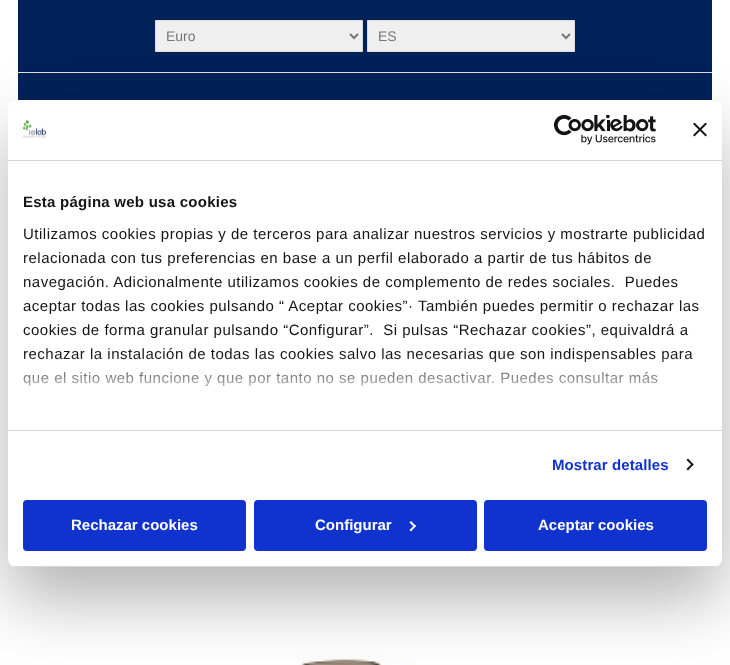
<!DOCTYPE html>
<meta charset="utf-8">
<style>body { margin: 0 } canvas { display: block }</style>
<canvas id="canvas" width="730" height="665"></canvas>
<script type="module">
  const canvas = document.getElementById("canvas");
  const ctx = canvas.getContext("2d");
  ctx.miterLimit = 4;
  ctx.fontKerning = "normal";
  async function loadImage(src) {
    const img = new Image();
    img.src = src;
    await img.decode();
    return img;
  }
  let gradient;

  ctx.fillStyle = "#ffffff";
  ctx.fillRect(0, 0, 730, 665);
  ctx.fillStyle = "#002258";
  ctx.fillRect(18, 0, 694, 100);
  ctx.fillStyle = "#dddddd";
  ctx.fillRect(18, 72, 694, 1);
  ctx.fillStyle = "#efefef";
  ctx.beginPath();
  ctx.rect(155.5, 20.5, 207, 31);
  ctx.fill();
  ctx.strokeStyle = "#dddddd";
  ctx.stroke();
  ctx.beginPath();
  ctx.moveTo(350, 34);
  ctx.lineTo(354, 38);
  ctx.lineTo(358, 34);
  ctx.strokeStyle = "#777777";
  ctx.lineWidth = 2;
  ctx.stroke();
  ctx.font = "14px Liberation Sans";
  ctx.fillStyle = "#777777";
  ctx.fillText("Euro", 166, 41);
  ctx.fillStyle = "#efefef";
  ctx.beginPath();
  ctx.rect(367.5, 20.5, 207, 31);
  ctx.fill();
  ctx.strokeStyle = "#dddddd";
  ctx.lineWidth = 1;
  ctx.stroke();
  ctx.beginPath();
  ctx.moveTo(562, 34);
  ctx.lineTo(566, 38);
  ctx.lineTo(570, 34);
  ctx.strokeStyle = "#777777";
  ctx.lineWidth = 2;
  ctx.stroke();
  ctx.fillStyle = "#777777";
  ctx.fillText("ES", 378, 41);
  ctx.drawImage(await loadImage("img1.png"), 300, 650, 116, 15);
  ctx.fillStyle = "rgba(0, 0, 0, 0.3)";
  ctx.filter = "blur(34px)";
  ctx.beginPath();
  ctx.roundRect(8, 132, 714, 467, 8);
  ctx.fill();
  ctx.filter = "none";
  ctx.fillStyle = "#ffffff";
  ctx.beginPath();
  ctx.roundRect(8, 100, 714, 467, 8);
  ctx.fill();
  ctx.fillStyle = "#d6d6d6";
  ctx.fillRect(8, 160, 714, 1);
  ctx.drawImage(await loadImage("img2.png"), 23, 119, 23, 19);
  ctx.drawImage(await loadImage("img3.png"), 554, 115, 102, 30);
  ctx.drawImage(await loadImage("img4.png"), 693, 123, 14, 14);
  ctx.fillRect(8, 430, 714, 1);
  ctx.letterSpacing = "0.25px";
  ctx.font = "bold 15px Liberation Sans";
  ctx.fillStyle = "#141414";
  ctx.fillText("Esta página web usa cookies", 23, 207);
  ctx.letterSpacing = "0.5px";
  ctx.font = "15px Liberation Sans";
  ctx.fillText("Utilizamos cookies propias y de terceros para analizar nuestros servicios y mostrarte publicidad", 23, 239);
  ctx.fillText("relacionada con tus preferencias en base a un perfil elaborado a partir de tus hábitos de", 23, 263);
  ctx.fillText("navegación. Adicionalmente utilizamos cookies de complemento de redes sociales.  Puedes", 23, 287);
  ctx.fillText("aceptar todas las cookies pulsando “ Aceptar cookies”· También puedes permitir o rechazar las", 23, 311);
  ctx.fillText("cookies de forma granular pulsando “Configurar”.  Si pulsas “Rechazar cookies”, equivaldrá a", 23, 335);
  ctx.fillText("rechazar la instalación de todas las cookies salvo las necesarias que son indispensables para", 23, 359);
  ctx.fillText("que el sitio web funcione y que por tanto no se pueden desactivar. Puedes consultar más", 23, 383);
  gradient = ctx.createLinearGradient(359, 430, 359, 355);
  gradient.addColorStop(0, "#ffffff");
  gradient.addColorStop(0.5, "rgba(255, 255, 255, 0.8)");
  gradient.addColorStop(1, "rgba(255, 255, 255, 0)");
  ctx.fillStyle = gradient;
  ctx.fillRect(23, 356, 670, 31);
  ctx.letterSpacing = "0.1px";
  ctx.font = "bold 15px Liberation Sans";
  ctx.fillStyle = "#1032cf";
  ctx.fillText("Mostrar detalles", 552, 470);
  ctx.fillStyle = "#141414";
  ctx.beginPath();
  ctx.moveTo(688, 458.5);
  ctx.lineTo(693.5, 464.5);
  ctx.lineTo(692.5, 466);
  ctx.lineTo(686.5, 460);
  ctx.closePath();
  ctx.fill();
  ctx.beginPath();
  ctx.moveTo(692.5, 463);
  ctx.lineTo(693.5, 464.5);
  ctx.lineTo(688, 470.5);
  ctx.lineTo(686.5, 469);
  ctx.closePath();
  ctx.fill();
  ctx.save();
  ctx.beginPath();
  ctx.roundRect(8, 100, 714, 467, 8);
  ctx.clip();
  ctx.fillStyle = "#d6d6d6";
  ctx.fillRect(8, 566, 714, 1);
  ctx.restore();
  ctx.fillStyle = "#1032cf";
  ctx.beginPath();
  ctx.roundRect(24, 501, 221, 49, 3);
  ctx.fill();
  ctx.strokeStyle = "#1032cf";
  ctx.stroke();
  ctx.letterSpacing = "0px";
  ctx.fillStyle = "#ffffff";
  ctx.fillText("Rechazar cookies", 71, 530);
  ctx.fillStyle = "#1032cf";
  ctx.beginPath();
  ctx.roundRect(255, 501, 221, 49, 3);
  ctx.fill();
  ctx.stroke();
  ctx.fillStyle = "#ffffff";
  ctx.fillText("Configurar", 315, 530);
  ctx.beginPath();
  ctx.moveTo(411, 521);
  ctx.lineTo(416, 526);
  ctx.lineTo(414.5, 527.5);
  ctx.lineTo(409.5, 522.5);
  ctx.closePath();
  ctx.fill();
  ctx.beginPath();
  ctx.moveTo(414.5, 525);
  ctx.lineTo(416, 526);
  ctx.lineTo(411, 531.5);
  ctx.lineTo(409.5, 530);
  ctx.closePath();
  ctx.fill();
  ctx.fillStyle = "#1032cf";
  ctx.beginPath();
  ctx.roundRect(485, 501, 221, 49, 3);
  ctx.fill();
  ctx.stroke();
  ctx.fillStyle = "#ffffff";
  ctx.fillText("Aceptar cookies", 538, 530);
</script>
